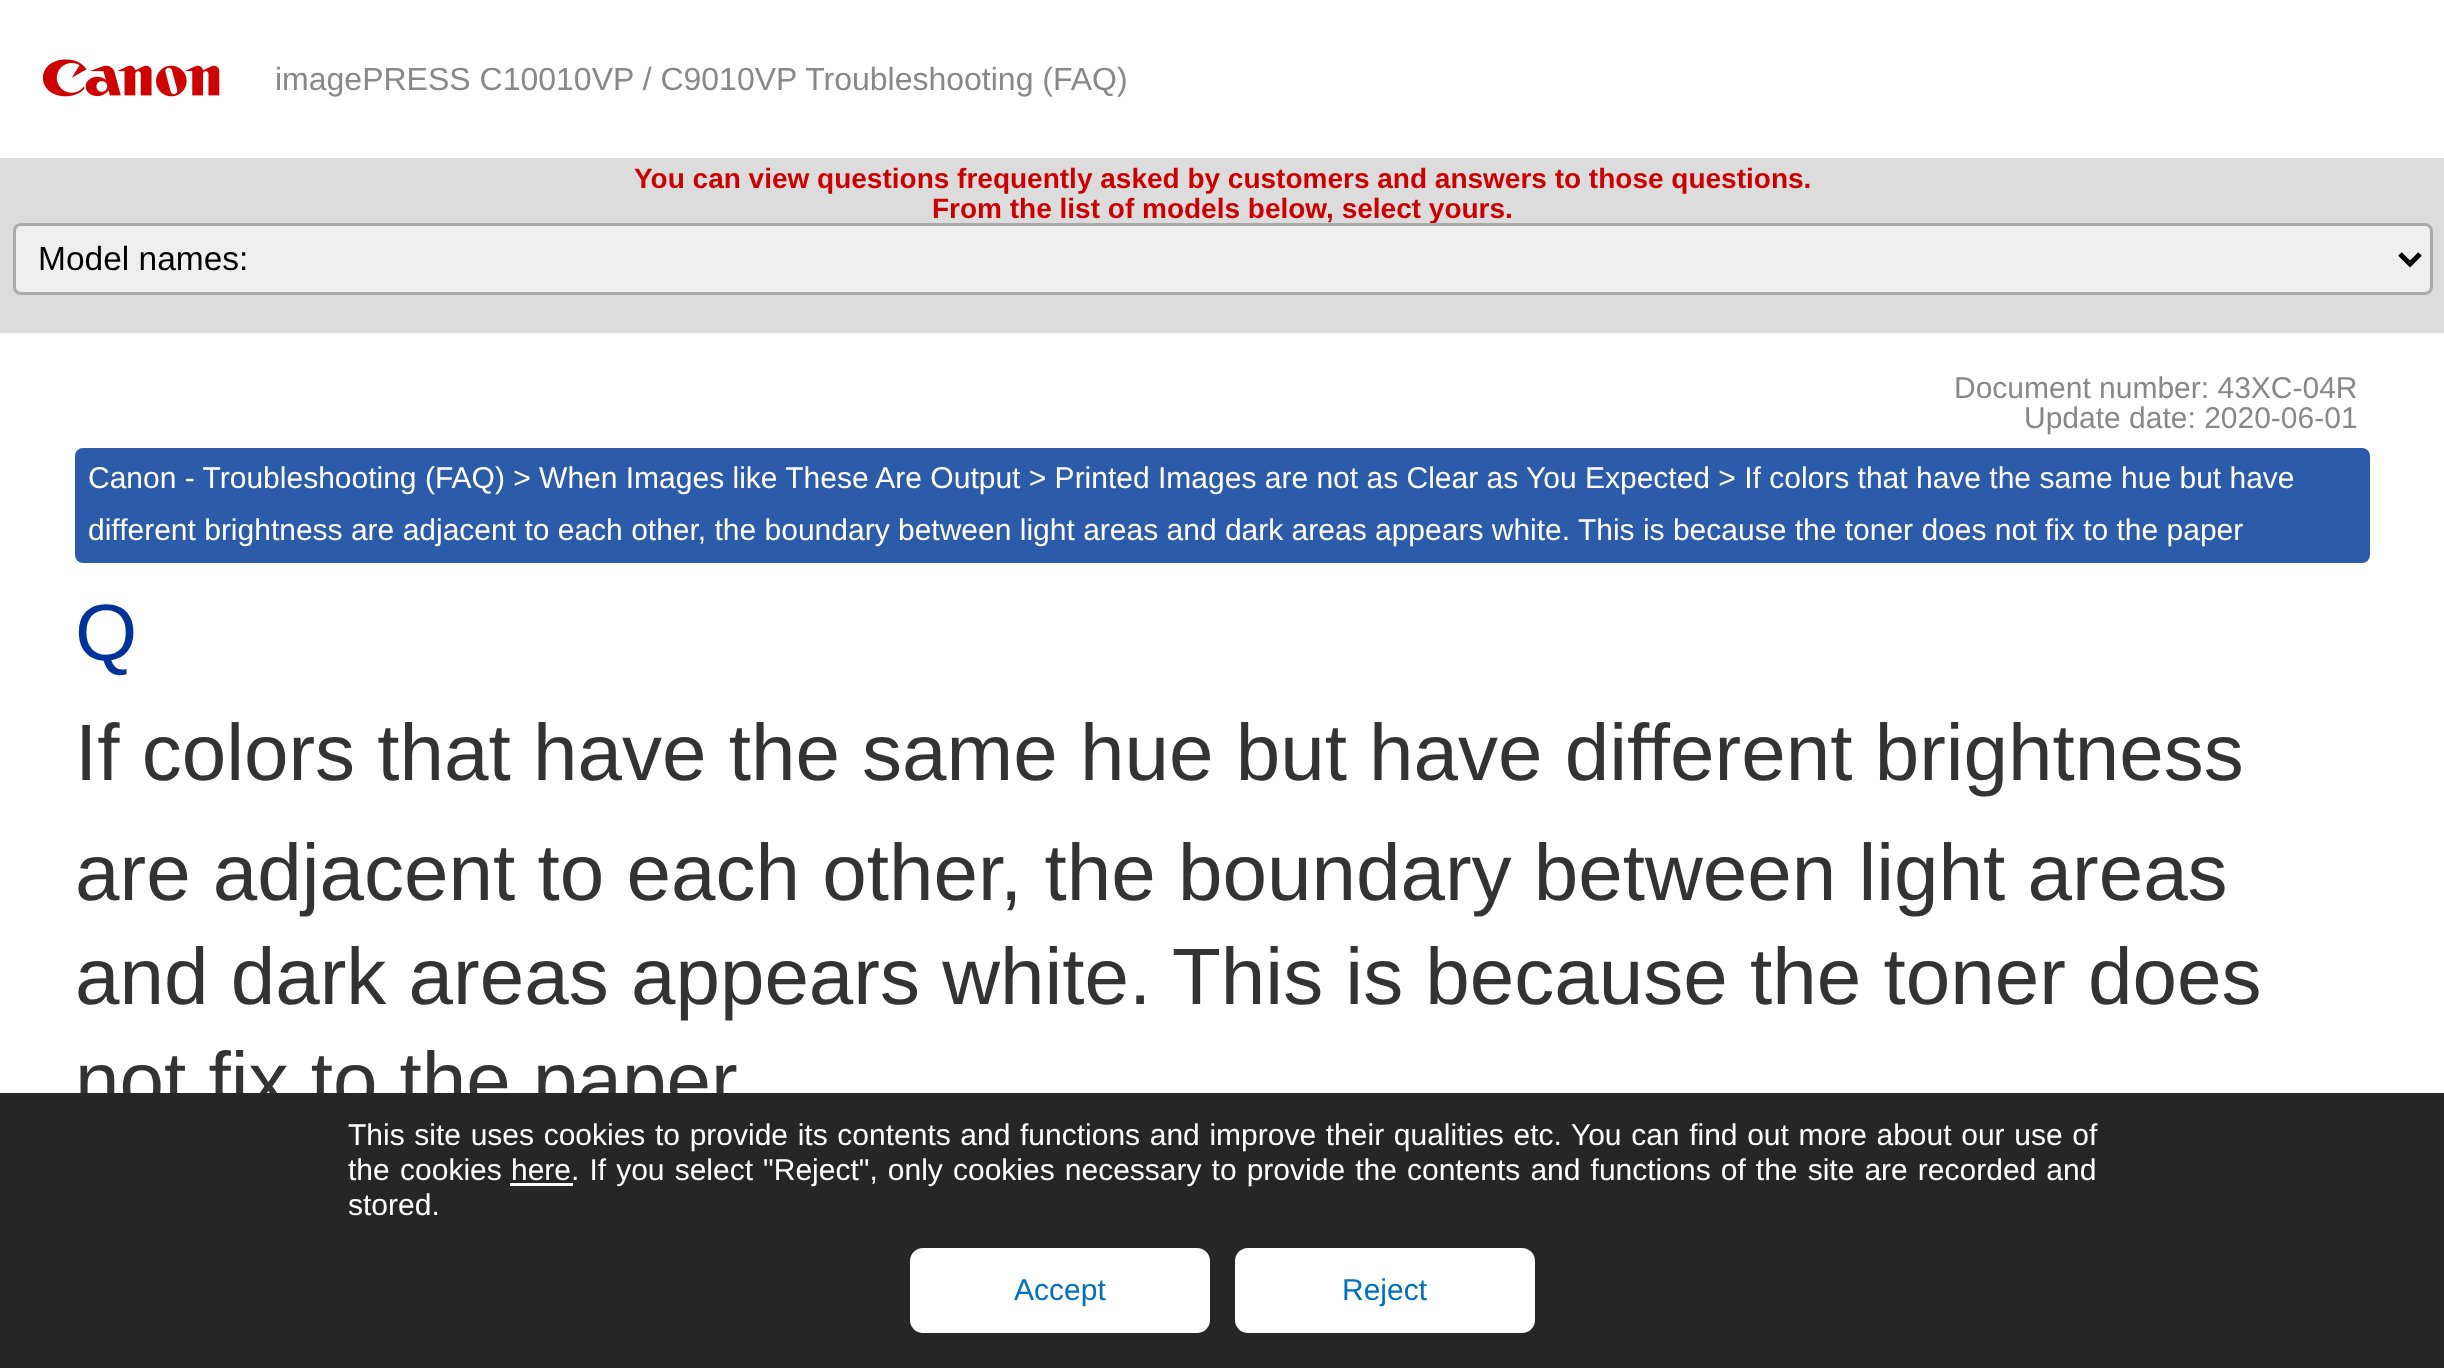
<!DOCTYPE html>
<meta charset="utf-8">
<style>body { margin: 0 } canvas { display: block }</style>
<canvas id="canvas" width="2444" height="1368"></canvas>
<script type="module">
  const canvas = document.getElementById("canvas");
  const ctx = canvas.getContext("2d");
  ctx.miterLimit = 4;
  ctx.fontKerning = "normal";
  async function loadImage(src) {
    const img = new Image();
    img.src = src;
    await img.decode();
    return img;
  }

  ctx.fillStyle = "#ffffff";
  ctx.fillRect(0, 0, 2444, 1368);
  ctx.drawImage(await loadImage("img1.png"), 43, 59, 177, 38);
  ctx.font = "32px Liberation Sans";
  ctx.fillStyle = "#888888";
  ctx.fillText("imagePRESS C10010VP / C9010VP Troubleshooting (FAQ)", 275, 90);
  ctx.fillStyle = "#dcdcdc";
  ctx.fillRect(0, 158, 2444, 175);
  ctx.font = "bold 28px Liberation Sans";
  ctx.fillStyle = "#cc0000";
  ctx.fillText("You can view questions frequently asked by customers and answers to those questions.", 634, 188);
  ctx.fillText("From the list of models below, select yours.", 932, 218);
  ctx.fillStyle = "#efefef";
  ctx.beginPath();
  ctx.roundRect(14.5, 224.5, 2417, 69, 6.5);
  ctx.fill();
  ctx.strokeStyle = "#aaaaaa";
  ctx.lineWidth = 3;
  ctx.stroke();
  ctx.beginPath();
  ctx.moveTo(2400, 254);
  ctx.lineTo(2410, 264);
  ctx.lineTo(2420, 254);
  ctx.strokeStyle = "#000000";
  ctx.lineWidth = 5;
  ctx.stroke();
  ctx.font = "33.5px Liberation Sans";
  ctx.fillStyle = "#000000";
  ctx.fillText("Model names:", 38, 270);
  ctx.font = "30px Liberation Sans";
  ctx.fillStyle = "#888888";
  ctx.fillText("Document number: 43XC-04R", 1954, 398);
  ctx.fillText("Update date: 2020-06-01", 2024, 428);
  ctx.fillStyle = "#2c5ba9";
  ctx.beginPath();
  ctx.roundRect(75, 448, 2295, 115, 8);
  ctx.fill();
  ctx.fillStyle = "#ffffff";
  ctx.fillText("Canon - Troubleshooting (FAQ) > When Images like These Are Output > Printed Images are not as Clear as You Expected > If colors that have the same hue but have", 88, 488);
  ctx.fillText("different brightness are adjacent to each other, the boundary between light areas and dark areas appears white. This is because the toner does not fix to the paper", 88, 540);
  ctx.font = "80px Liberation Sans";
  ctx.fillStyle = "#003399";
  ctx.fillText("Q", 75, 660);
  ctx.fillStyle = "#333333";
  ctx.fillText("If colors that have the same hue but have different brightness", 75, 780);
  ctx.fillText("are adjacent to each other, the boundary between light areas", 75, 900);
  ctx.fillText("and dark areas appears white. This is because the toner does", 75, 1004);
  ctx.fillText("not fix to the paper", 75, 1108);
  ctx.fillStyle = "#262626";
  ctx.fillRect(0, 1093, 2444, 275);
  ctx.wordSpacing = "1.3px";
  ctx.font = "30px Liberation Sans";
  ctx.fillStyle = "#ffffff";
  ctx.fillText("This site uses cookies to provide its contents and functions and improve their qualities etc. You can find out more about our use of", 348, 1145);
  ctx.wordSpacing = "2px";
  ctx.fillText("the cookies", 348, 1180);
  ctx.wordSpacing = "0px";
  ctx.fillText("here", 511, 1180);
  ctx.fillRect(510, 1183, 63, 3);
  ctx.wordSpacing = "1.75px";
  ctx.fillText(". If you select \"Reject\", only cookies necessary to provide the contents and functions of the site are recorded and", 571, 1180);
  ctx.wordSpacing = "0px";
  ctx.fillText("stored.", 348, 1215);
  ctx.beginPath();
  ctx.roundRect(910, 1248, 300, 85, 13);
  ctx.fill();
  ctx.fillStyle = "#0070c0";
  ctx.fillText("Accept", 1014, 1300);
  ctx.fillStyle = "#ffffff";
  ctx.beginPath();
  ctx.roundRect(1235, 1248, 300, 85, 13);
  ctx.fill();
  ctx.fillStyle = "#0070c0";
  ctx.fillText("Reject", 1342, 1300);
</script>
